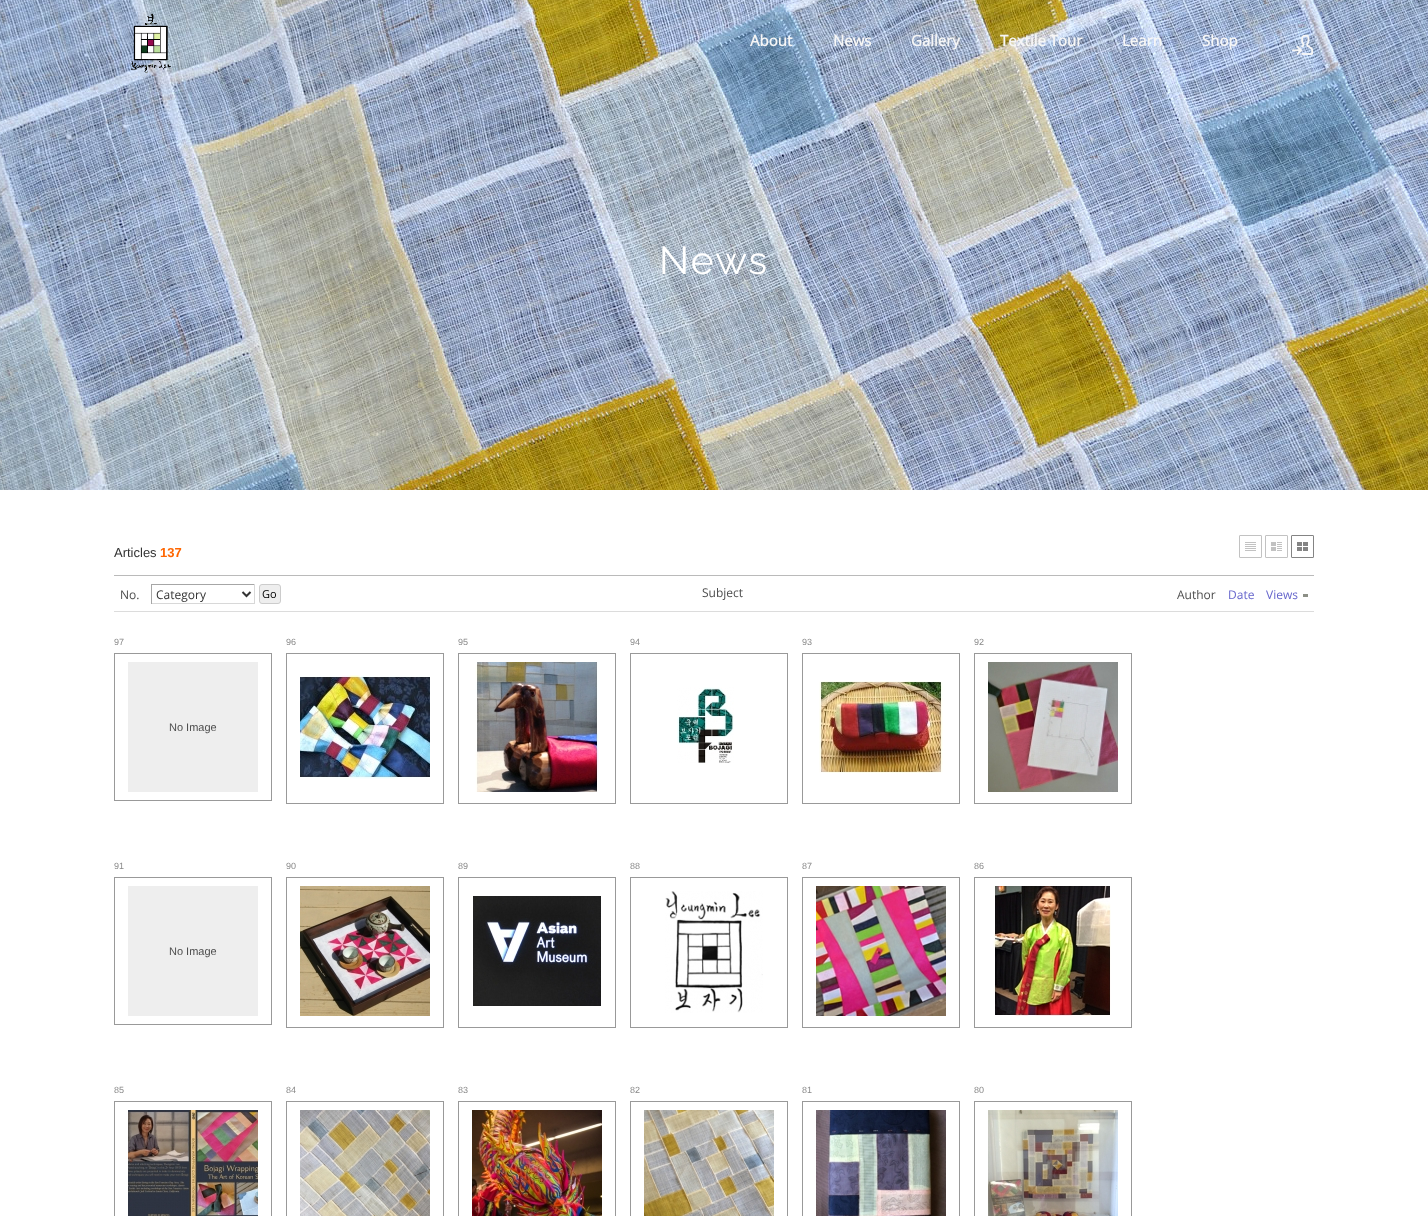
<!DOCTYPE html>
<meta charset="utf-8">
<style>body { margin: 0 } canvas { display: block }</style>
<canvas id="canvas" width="1428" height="1216"></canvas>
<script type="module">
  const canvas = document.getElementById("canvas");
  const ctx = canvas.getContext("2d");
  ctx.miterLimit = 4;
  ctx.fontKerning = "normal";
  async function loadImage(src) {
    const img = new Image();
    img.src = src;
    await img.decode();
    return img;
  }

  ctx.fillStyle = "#ffffff";
  ctx.fillRect(0, 0, 1428, 1216);
  ctx.drawImage(await loadImage("img3.png"), 0, 0, 1428, 490);
  ctx.drawImage(await loadImage("img1.png"), 131, 13, 40, 60);
  ctx.font = "bold 15px Open Sans";
  ctx.fillStyle = "#f6f6f6";
  ctx.fillText("About", 750, 46);
  ctx.fillText("News", 833, 46);
  ctx.fillText("Gallery", 911, 46);
  ctx.fillText("Textile Tour", 1000, 46);
  ctx.fillText("Learn", 1122, 46);
  ctx.fillText("Shop", 1202, 46);
  ctx.drawImage(await loadImage("img2.png"), 1292, 34, 22, 21);
  ctx.letterSpacing = "2px";
  ctx.font = "39px Raleway";
  ctx.fillStyle = "#ffffff";
  ctx.fillText("News", 659, 274);
  ctx.letterSpacing = "0px";
  ctx.font = "13px Liberation Sans";
  ctx.fillStyle = "#333333";
  ctx.fillText("Articles", 114, 557);
  ctx.font = "bold 13px Liberation Sans";
  ctx.fillStyle = "#ff6600";
  ctx.fillText("137", 160, 557);
  ctx.drawImage(await loadImage("img4.png"), 1239, 535, 23, 23);
  ctx.drawImage(await loadImage("img5.png"), 1265, 535, 23, 23);
  ctx.drawImage(await loadImage("img6.png"), 1291, 535, 23, 23);
  ctx.fillStyle = "#bababa";
  ctx.fillRect(114, 575, 1200, 1);
  ctx.fillStyle = "#dcdcdc";
  ctx.fillRect(114, 611, 1200, 1);
  ctx.font = "12px Open Sans";
  ctx.fillStyle = "#4d4d4d";
  ctx.fillText("No.", 120, 599);
  ctx.fillStyle = "#a6a6a6";
  ctx.fillRect(151, 584, 104, 1);
  ctx.fillStyle = "#d8d8d8";
  ctx.fillRect(254, 584, 1, 20);
  ctx.fillRect(151, 603, 104, 1);
  ctx.fillStyle = "#a6a6a6";
  ctx.fillRect(151, 584, 1, 20);
  ctx.beginPath();
  ctx.moveTo(242.5, 592);
  ctx.lineTo(246.5, 596);
  ctx.lineTo(250.5, 592);
  ctx.strokeStyle = "#333333";
  ctx.lineWidth = 2;
  ctx.stroke();
  ctx.fillStyle = "#333333";
  ctx.fillText("Category", 156, 599);
  ctx.fillStyle = "#eeeeee";
  ctx.beginPath();
  ctx.roundRect(259.5, 584.5, 21, 19, 2.5);
  ctx.fill();
  ctx.strokeStyle = "#cccccc";
  ctx.lineWidth = 1;
  ctx.stroke();
  ctx.font = "11px Open Sans";
  ctx.fillStyle = "#000000";
  ctx.fillText("Go", 262, 598);
  ctx.font = "12px Open Sans";
  ctx.fillStyle = "#4d4d4d";
  ctx.fillText("Subject", 702, 597);
  ctx.fillText("Author", 1177, 599);
  ctx.fillStyle = "#6666cc";
  ctx.fillText("Date", 1228, 599);
  ctx.fillText("Views", 1266, 599);
  ctx.fillStyle = "#8c8f86";
  ctx.fillRect(1303, 594, 5, 3);
  ctx.font = "9px Liberation Sans";
  ctx.fillStyle = "#888888";
  ctx.fillText("97", 114, 645);
  ctx.strokeStyle = "#999999";
  ctx.strokeRect(114.5, 653.5, 157, 147);
  ctx.fillStyle = "#eeeeee";
  ctx.fillRect(128, 662, 130, 130);
  ctx.font = "11px Liberation Sans";
  ctx.fillStyle = "#4d4d4d";
  ctx.fillText("No Image", 169, 731);
  ctx.font = "9px Liberation Sans";
  ctx.fillStyle = "#888888";
  ctx.fillText("96", 286, 645);
  ctx.strokeRect(286.5, 653.5, 157, 150);
  ctx.drawImage(await loadImage("img7.png"), 300, 675, 130, 104);
  ctx.fillText("95", 458, 645);
  ctx.strokeRect(458.5, 653.5, 157, 150);
  ctx.drawImage(await loadImage("img8.png"), 475, 662, 124, 130);
  ctx.fillText("94", 630, 645);
  ctx.strokeRect(630.5, 653.5, 157, 150);
  ctx.drawImage(await loadImage("img9.png"), 677, 687, 57, 76);
  ctx.fillText("93", 802, 645);
  ctx.strokeRect(802.5, 653.5, 157, 150);
  ctx.drawImage(await loadImage("img10.png"), 819, 681, 124, 92);
  ctx.fillText("92", 974, 645);
  ctx.strokeRect(974.5, 653.5, 157, 150);
  ctx.drawImage(await loadImage("img11.png"), 988, 662, 130, 130);
  ctx.fillText("91", 114, 869);
  ctx.strokeRect(114.5, 877.5, 157, 147);
  ctx.fillStyle = "#eeeeee";
  ctx.fillRect(128, 886, 130, 130);
  ctx.font = "11px Liberation Sans";
  ctx.fillStyle = "#4d4d4d";
  ctx.fillText("No Image", 169, 955);
  ctx.font = "9px Liberation Sans";
  ctx.fillStyle = "#888888";
  ctx.fillText("90", 286, 869);
  ctx.strokeRect(286.5, 877.5, 157, 150);
  ctx.drawImage(await loadImage("img12.png"), 300, 886, 130, 130);
  ctx.fillText("89", 458, 869);
  ctx.strokeRect(458.5, 877.5, 157, 150);
  ctx.drawImage(await loadImage("img13.png"), 473, 896, 128, 110);
  ctx.fillText("88", 630, 869);
  ctx.strokeRect(630.5, 877.5, 157, 150);
  ctx.drawImage(await loadImage("img14.png"), 665, 891, 98, 122);
  ctx.fillText("87", 802, 869);
  ctx.strokeRect(802.5, 877.5, 157, 150);
  ctx.drawImage(await loadImage("img15.png"), 816, 886, 130, 130);
  ctx.fillText("86", 974, 869);
  ctx.strokeRect(974.5, 877.5, 157, 150);
  ctx.drawImage(await loadImage("img16.png"), 993, 886, 118, 130);
  ctx.fillText("85", 114, 1093);
  ctx.strokeRect(114.5, 1101.5, 157, 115);
  ctx.drawImage(await loadImage("img17.png"), 128, 1110, 130, 106);
  ctx.fillText("84", 286, 1093);
  ctx.strokeRect(286.5, 1101.5, 157, 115);
  ctx.drawImage(await loadImage("img18.png"), 300, 1110, 130, 106);
  ctx.fillText("83", 458, 1093);
  ctx.strokeRect(458.5, 1101.5, 157, 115);
  ctx.drawImage(await loadImage("img19.png"), 472, 1110, 130, 106);
  ctx.fillText("82", 630, 1093);
  ctx.strokeRect(630.5, 1101.5, 157, 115);
  ctx.drawImage(await loadImage("img20.png"), 644, 1110, 130, 106);
  ctx.fillText("81", 802, 1093);
  ctx.strokeRect(802.5, 1101.5, 157, 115);
  ctx.drawImage(await loadImage("img21.png"), 816, 1110, 130, 106);
  ctx.fillText("80", 974, 1093);
  ctx.strokeRect(974.5, 1101.5, 157, 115);
  ctx.drawImage(await loadImage("img22.png"), 988, 1110, 130, 106);
</script>
